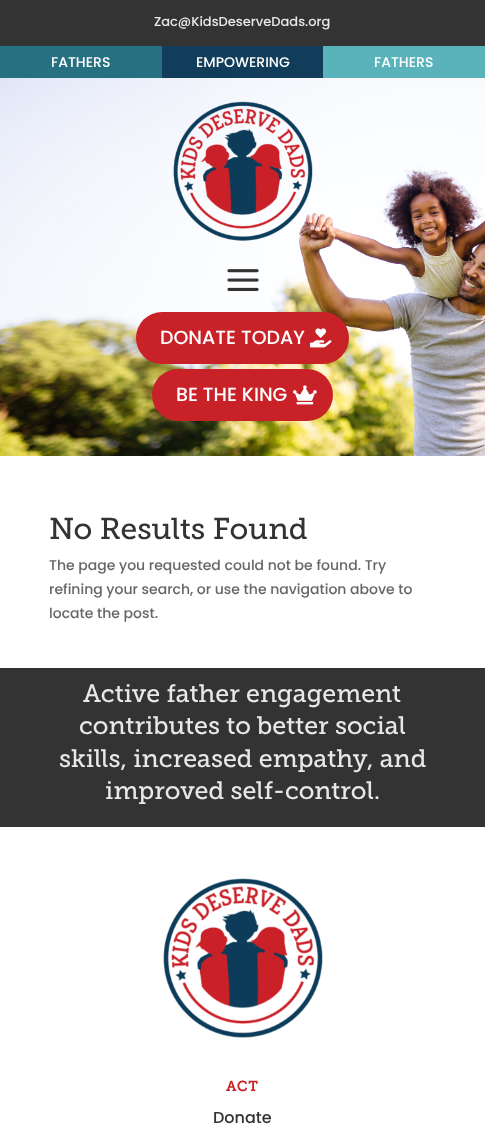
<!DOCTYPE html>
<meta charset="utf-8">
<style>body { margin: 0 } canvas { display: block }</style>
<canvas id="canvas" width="485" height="1147"></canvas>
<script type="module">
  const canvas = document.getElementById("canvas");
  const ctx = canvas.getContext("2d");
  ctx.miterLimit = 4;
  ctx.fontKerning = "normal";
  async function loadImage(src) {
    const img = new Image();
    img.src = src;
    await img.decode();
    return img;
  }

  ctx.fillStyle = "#ffffff";
  ctx.fillRect(0, 0, 485, 1147);
  ctx.fillStyle = "#333333";
  ctx.fillRect(0, 0, 485, 46);
  ctx.font = "500 13px Poppins";
  ctx.fillStyle = "#e8e8e8";
  ctx.fillText("Zac@KidsDeserveDads.org", 154, 26);
  ctx.fillStyle = "#257182";
  ctx.fillRect(0, 46, 162, 32);
  ctx.font = "500 14px Poppins";
  ctx.fillStyle = "#ffffff";
  ctx.fillText("FATHERS", 51, 67);
  ctx.fillStyle = "#113c5a";
  ctx.fillRect(162, 46, 161, 32);
  ctx.fillStyle = "#ffffff";
  ctx.fillText("EMPOWERING", 196, 67);
  ctx.fillStyle = "#5ab2ba";
  ctx.fillRect(323, 46, 162, 32);
  ctx.fillStyle = "#ffffff";
  ctx.fillText("FATHERS", 374, 67);
  ctx.drawImage(await loadImage("img1.png"), 0, 78, 485, 378);
  ctx.drawImage(await loadImage("img2.png"), 173, 101, 140, 140);
  ctx.drawImage(await loadImage("img3.png"), 227, 269, 32, 22);
  ctx.fillStyle = "#c82127";
  ctx.beginPath();
  ctx.roundRect(136, 312, 213, 52, 26);
  ctx.fill();
  ctx.font = "500 19px Poppins";
  ctx.fillStyle = "#ffffff";
  ctx.fillText("DONATE TODAY", 160, 344);
  ctx.drawImage(await loadImage("img4.png"), 310, 328, 22, 20);
  ctx.fillStyle = "#c82127";
  ctx.beginPath();
  ctx.roundRect(152, 369, 181, 52, 26);
  ctx.fill();
  ctx.fillStyle = "#ffffff";
  ctx.fillText("BE THE KING", 176, 401);
  ctx.drawImage(await loadImage("img5.png"), 293, 385, 24, 20);
  ctx.font = "30px Museo Slab";
  ctx.fillStyle = "#333333";
  ctx.fillText("No Results Found", 49, 539);
  ctx.font = "500 14px Poppins";
  ctx.fillStyle = "#666666";
  ctx.fillText("The page you requested could not be found. Try", 49, 570);
  ctx.fillText("refining your search, or use the navigation above to", 49, 594);
  ctx.fillText("locate the post.", 49, 618);
  ctx.fillStyle = "#333333";
  ctx.fillRect(0, 668, 485, 159);
  ctx.font = "25px Museo Slab";
  ctx.fillStyle = "#e8e8e8";
  ctx.fillText("Active father engagement", 83, 702);
  ctx.fillText("contributes to better social", 79, 734);
  ctx.fillText("skills, increased empathy, and", 59, 767);
  ctx.fillText("improved self-control.", 105, 799);
  ctx.drawImage(await loadImage("img6.png"), 163, 878, 160, 160);
  ctx.letterSpacing = "1px";
  ctx.font = "bold 14px Museo Slab";
  ctx.fillStyle = "#c82127";
  ctx.fillText("ACT", 226, 1091);
  ctx.letterSpacing = "0px";
  ctx.font = "500 16px Poppins";
  ctx.fillStyle = "#333333";
  ctx.fillText("Donate", 213, 1123);
</script>
